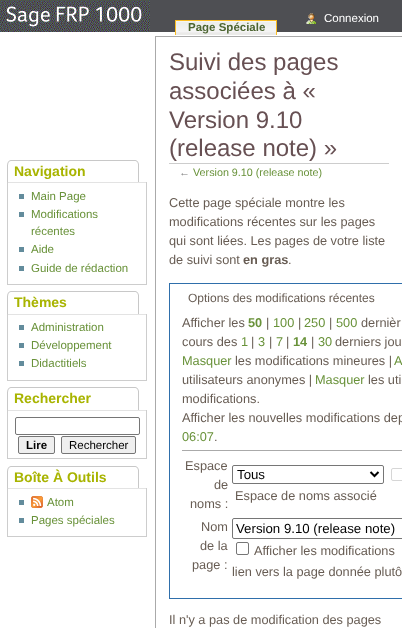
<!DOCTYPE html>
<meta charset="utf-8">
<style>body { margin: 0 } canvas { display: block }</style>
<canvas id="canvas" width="402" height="628"></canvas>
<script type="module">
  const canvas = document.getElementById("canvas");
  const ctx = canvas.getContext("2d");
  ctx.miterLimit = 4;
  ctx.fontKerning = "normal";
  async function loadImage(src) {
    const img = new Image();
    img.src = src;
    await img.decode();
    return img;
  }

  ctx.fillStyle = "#ffffff";
  ctx.fillRect(0, 0, 402, 628);
  ctx.drawImage(await loadImage("img1.png"), 0, 0, 402, 628);
  ctx.drawImage(await loadImage("img2.png"), 0, 0, 150, 32);
  ctx.drawImage(await loadImage("img3.png"), 306, 13, 11, 11);
  ctx.font = "11.5px Liberation Sans";
  ctx.fillText("Connexion", 324, 22);
  ctx.drawImage(await loadImage("img4.png"), 176, 21, 100, 14);
  ctx.font = "bold 11.5px Liberation Sans";
  ctx.fillStyle = "#4d6532";
  ctx.fillText("Page Spéciale", 188, 31);
  ctx.fillStyle = "#fabd23";
  ctx.fillRect(175, 20, 102, 1);
  ctx.fillRect(276, 20, 1, 15);
  ctx.fillRect(175, 20, 1, 15);
  ctx.drawImage(await loadImage("img5.png"), 7, 160, 132, 22);
  ctx.font = "bold 14px Liberation Sans";
  ctx.fillStyle = "#a8b400";
  ctx.fillText("Navigation", 14, 176);
  ctx.fillStyle = "#e3e3e3";
  ctx.fillRect(7, 182, 140, 1);
  ctx.fillStyle = "#cdcdcd";
  ctx.fillRect(146, 182, 1, 103);
  ctx.fillRect(7, 284, 140, 1);
  ctx.fillRect(7, 182, 1, 103);
  ctx.fillStyle = "#638c9c";
  ctx.fillRect(19, 194, 5, 5);
  ctx.font = "11.5px Liberation Sans";
  ctx.fillStyle = "#69923a";
  ctx.fillText("Main Page", 31, 200);
  ctx.fillStyle = "#638c9c";
  ctx.fillRect(19, 212, 5, 5);
  ctx.fillStyle = "#69923a";
  ctx.fillText("Modifications", 31, 218);
  ctx.fillText("récentes", 31, 235);
  ctx.fillStyle = "#638c9c";
  ctx.fillRect(19, 247, 5, 5);
  ctx.fillStyle = "#69923a";
  ctx.fillText("Aide", 31, 253);
  ctx.fillStyle = "#638c9c";
  ctx.fillRect(19, 266, 5, 5);
  ctx.fillStyle = "#69923a";
  ctx.fillText("Guide de rédaction", 31, 272);
  ctx.drawImage(await loadImage("img6.png"), 7, 291, 132, 23);
  ctx.font = "bold 14px Liberation Sans";
  ctx.fillStyle = "#a8b400";
  ctx.fillText("Thèmes", 14, 307);
  ctx.fillStyle = "#e3e3e3";
  ctx.fillRect(7, 314, 140, 1);
  ctx.fillStyle = "#cdcdcd";
  ctx.fillRect(146, 314, 1, 67);
  ctx.fillRect(7, 380, 140, 1);
  ctx.fillRect(7, 314, 1, 67);
  ctx.fillStyle = "#638c9c";
  ctx.fillRect(19, 325, 5, 5);
  ctx.font = "11.5px Liberation Sans";
  ctx.fillStyle = "#69923a";
  ctx.fillText("Administration", 31, 331);
  ctx.fillStyle = "#638c9c";
  ctx.fillRect(19, 343, 5, 5);
  ctx.fillStyle = "#69923a";
  ctx.fillText("Développement", 31, 349);
  ctx.fillStyle = "#638c9c";
  ctx.fillRect(19, 361, 5, 5);
  ctx.fillStyle = "#69923a";
  ctx.fillText("Didactitiels", 31, 367);
  ctx.drawImage(await loadImage("img6.png"), 7, 387, 132, 23);
  ctx.font = "bold 14px Liberation Sans";
  ctx.fillStyle = "#a8b400";
  ctx.fillText("Rechercher", 14, 403);
  ctx.fillStyle = "#e3e3e3";
  ctx.fillRect(7, 410, 140, 1);
  ctx.fillStyle = "#cdcdcd";
  ctx.fillRect(146, 410, 1, 49);
  ctx.fillRect(7, 458, 140, 1);
  ctx.fillRect(7, 410, 1, 49);
  ctx.beginPath();
  ctx.roundRect(15.5, 417.5, 124, 17, 1.5);
  ctx.strokeStyle = "#767676";
  ctx.stroke();
  ctx.fillStyle = "#efefef";
  ctx.beginPath();
  ctx.roundRect(18.5, 436.5, 36, 17, 1.5);
  ctx.fill();
  ctx.stroke();
  ctx.font = "bold 11.5px Liberation Sans";
  ctx.fillStyle = "#000000";
  ctx.fillText("Lire", 26, 449);
  ctx.fillStyle = "#efefef";
  ctx.beginPath();
  ctx.roundRect(61.5, 436.5, 74, 17, 1.5);
  ctx.fill();
  ctx.stroke();
  ctx.font = "11.5px Liberation Sans";
  ctx.fillStyle = "#000000";
  ctx.fillText("Rechercher", 69, 449);
  ctx.drawImage(await loadImage("img5.png"), 7, 466, 132, 22);
  ctx.font = "bold 14px Liberation Sans";
  ctx.fillStyle = "#a8b400";
  ctx.fillText("Boîte À Outils", 14, 482);
  ctx.fillStyle = "#e3e3e3";
  ctx.fillRect(7, 488, 140, 1);
  ctx.fillStyle = "#cdcdcd";
  ctx.fillRect(146, 488, 1, 49);
  ctx.fillRect(7, 536, 140, 1);
  ctx.fillRect(7, 488, 1, 49);
  ctx.fillStyle = "#638c9c";
  ctx.fillRect(19, 500, 5, 5);
  ctx.drawImage(await loadImage("img7.png"), 31, 496, 12, 12);
  ctx.font = "11.5px Liberation Sans";
  ctx.fillStyle = "#69923a";
  ctx.fillText("Atom", 47, 506);
  ctx.fillStyle = "#638c9c";
  ctx.fillRect(19, 518, 5, 5);
  ctx.fillStyle = "#69923a";
  ctx.fillText("Pages spéciales", 31, 524);
  ctx.fillStyle = "#aaaaaa";
  ctx.fillRect(155, 36, 247, 1);
  ctx.fillRect(155, 36, 1, 592);
  ctx.fillStyle = "#cdcdcd";
  ctx.fillRect(169, 163, 220, 1);
  ctx.font = "24px Liberation Sans";
  ctx.fillStyle = "#675053";
  ctx.fillText("Suivi des pages", 169, 70);
  ctx.fillText("associées à «", 169, 99);
  ctx.fillText("Version 9.10", 169, 128);
  ctx.fillText("(release note) »", 169, 156);
  ctx.font = "10.75px Liberation Sans";
  ctx.fillStyle = "#7d7d7d";
  ctx.fillText("←", 179, 176);
  ctx.fillStyle = "#69923a";
  ctx.fillText("Version 9.10 (release note)", 193, 176);
  ctx.font = "12.75px Liberation Sans";
  ctx.fillStyle = "#675c53";
  ctx.fillText("Cette page spéciale montre les", 169, 207);
  ctx.fillText("modifications récentes sur les pages", 169, 226);
  ctx.fillText("qui sont liées. Les pages de votre liste", 169, 245);
  ctx.fillText("de suivi sont", 169, 264);
  ctx.font = "bold 12.75px Liberation Sans";
  ctx.fillText("en gras", 243, 264);
  ctx.font = "12.75px Liberation Sans";
  ctx.fillText(".", 288, 264);
  ctx.strokeStyle = "#2f6fab";
  ctx.strokeRect(169.5, 283.5, 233, 315);
  ctx.font = "12px Liberation Sans";
  ctx.fillText("Options des modifications récentes", 188, 302);
  ctx.font = "12.75px Liberation Sans";
  ctx.fillText("Afficher les", 182, 327);
  ctx.font = "bold 12.75px Liberation Sans";
  ctx.fillStyle = "#69923a";
  ctx.fillText("50", 248, 327);
  ctx.font = "12.75px Liberation Sans";
  ctx.fillStyle = "#675c53";
  ctx.fillText("|", 266, 327);
  ctx.fillStyle = "#69923a";
  ctx.fillText("100", 273, 327);
  ctx.fillStyle = "#675c53";
  ctx.fillText("|", 298, 327);
  ctx.fillStyle = "#69923a";
  ctx.fillText("250", 304, 327);
  ctx.fillStyle = "#675c53";
  ctx.fillText("|", 329, 327);
  ctx.fillStyle = "#69923a";
  ctx.fillText("500", 336, 327);
  ctx.fillStyle = "#675c53";
  ctx.fillText("dernièr", 361, 327);
  ctx.fillText("cours des", 182, 346);
  ctx.fillStyle = "#69923a";
  ctx.fillText("1", 241, 346);
  ctx.fillStyle = "#675c53";
  ctx.fillText("|", 251, 346);
  ctx.fillStyle = "#69923a";
  ctx.fillText("3", 258, 346);
  ctx.fillStyle = "#675c53";
  ctx.fillText("|", 269, 346);
  ctx.fillStyle = "#69923a";
  ctx.fillText("7", 276, 346);
  ctx.fillStyle = "#675c53";
  ctx.fillText("|", 286, 346);
  ctx.font = "bold 12.75px Liberation Sans";
  ctx.fillStyle = "#69923a";
  ctx.fillText("14", 293, 346);
  ctx.font = "12.75px Liberation Sans";
  ctx.fillStyle = "#675c53";
  ctx.fillText("|", 311, 346);
  ctx.fillStyle = "#69923a";
  ctx.fillText("30", 318, 346);
  ctx.fillStyle = "#675c53";
  ctx.fillText("derniers jou", 335, 346);
  ctx.fillStyle = "#69923a";
  ctx.fillText("Masquer", 182, 365);
  ctx.fillStyle = "#675c53";
  ctx.fillText("les modifications mineures |", 235, 365);
  ctx.fillStyle = "#69923a";
  ctx.fillText("A", 394, 365);
  ctx.fillStyle = "#675c53";
  ctx.fillText("utilisateurs anonymes |", 182, 384);
  ctx.fillStyle = "#69923a";
  ctx.fillText("Masquer", 315, 384);
  ctx.fillStyle = "#675c53";
  ctx.fillText("les uti", 368, 384);
  ctx.fillText("modifications.", 182, 403);
  ctx.fillText("Afficher les nouvelles modifications dep", 182, 422);
  ctx.fillStyle = "#69923a";
  ctx.fillText("06:07", 182, 441);
  ctx.fillStyle = "#675c53";
  ctx.fillText(".", 214, 441);
  ctx.fillStyle = "#aaaaaa";
  ctx.fillRect(182, 450, 220, 1);
  ctx.fillStyle = "#675c53";
  ctx.fillText("Espace", 185, 470);
  ctx.fillText("de", 214, 489);
  ctx.fillText("noms :", 190, 508);
  ctx.beginPath();
  ctx.roundRect(232.5, 465.5, 151, 18, 1.5);
  ctx.strokeStyle = "#767676";
  ctx.stroke();
  ctx.beginPath();
  ctx.moveTo(370.5, 472);
  ctx.lineTo(374.5, 476);
  ctx.lineTo(378.5, 472);
  ctx.strokeStyle = "#000000";
  ctx.lineWidth = 2;
  ctx.stroke();
  ctx.font = "13.25px Liberation Sans";
  ctx.fillStyle = "#000000";
  ctx.fillText("Tous", 237, 479);
  ctx.beginPath();
  ctx.roundRect(391.5, 468.5, 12, 12, 1.5);
  ctx.strokeStyle = "#d6d6d6";
  ctx.lineWidth = 1;
  ctx.stroke();
  ctx.font = "12.75px Liberation Sans";
  ctx.fillStyle = "#675c53";
  ctx.fillText("Espace de noms associé", 235, 500);
  ctx.fillText("Nom", 201, 531);
  ctx.fillText("de la", 200, 550);
  ctx.fillText("page :", 192, 569);
  ctx.beginPath();
  ctx.roundRect(232.5, 518.5, 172, 20, 1.5);
  ctx.strokeStyle = "#767676";
  ctx.stroke();
  ctx.font = "13.25px Liberation Sans";
  ctx.fillStyle = "#000000";
  ctx.fillText("Version 9.10 (release note)", 236, 533);
  ctx.beginPath();
  ctx.roundRect(236.5, 542.5, 12, 12, 1.5);
  ctx.stroke();
  ctx.font = "12.75px Liberation Sans";
  ctx.fillStyle = "#675c53";
  ctx.fillText("Afficher les modifications", 254, 555);
  ctx.fillText("lien vers la page donnée plutô", 232, 576);
  ctx.fillText("Il n'y a pas de modification des pages", 169, 624);
</script>
